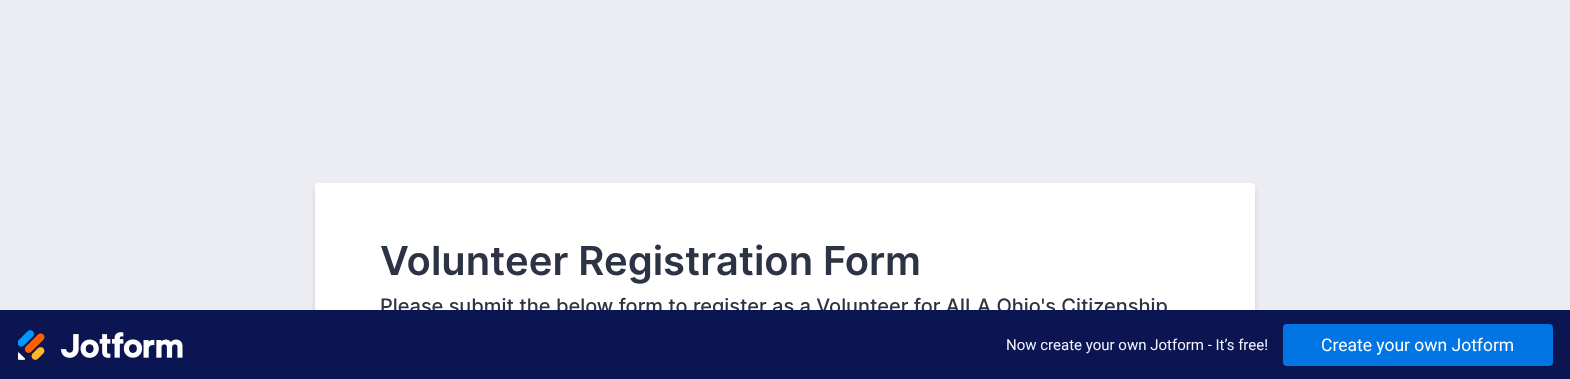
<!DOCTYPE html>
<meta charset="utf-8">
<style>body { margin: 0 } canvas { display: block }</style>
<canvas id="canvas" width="1570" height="379"></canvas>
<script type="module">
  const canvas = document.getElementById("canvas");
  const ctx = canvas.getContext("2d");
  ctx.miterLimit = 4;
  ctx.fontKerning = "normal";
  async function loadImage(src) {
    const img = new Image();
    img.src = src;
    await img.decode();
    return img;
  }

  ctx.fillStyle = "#ecedf3";
  ctx.fillRect(0, 0, 1570, 379);
  ctx.fillStyle = "rgba(87, 100, 126, 0.21)";
  ctx.filter = "blur(2.5px)";
  ctx.beginPath();
  ctx.roundRect(315, 188, 940, 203, 4);
  ctx.fill();
  ctx.filter = "none";
  ctx.fillStyle = "#ffffff";
  ctx.beginPath();
  ctx.roundRect(315, 183, 940, 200, 4);
  ctx.fill();
  ctx.font = "600 40px Inter";
  ctx.fillStyle = "#2c3345";
  ctx.fillText("Volunteer Registration Form", 380, 275);
  ctx.font = "500 20px Inter";
  ctx.fillText("Please submit the below form to register as a Volunteer for AILA Ohio's Citizenship", 380, 313);
  ctx.fillStyle = "#0a1551";
  ctx.fillRect(0, 310, 1570, 69);
  ctx.drawImage(await loadImage("img1.png"), 18, 330, 165, 30);
  ctx.font = "15px Roboto";
  ctx.fillStyle = "#f3f3fe";
  ctx.fillText("Now create your own Jotform - It’s free!", 1006, 350);
  ctx.fillStyle = "#0075e3";
  ctx.beginPath();
  ctx.roundRect(1283, 324, 270, 42, 4);
  ctx.fill();
  ctx.font = "17.5px Roboto";
  ctx.fillStyle = "#ffffff";
  ctx.fillText("Create your own Jotform", 1321, 351);
</script>
